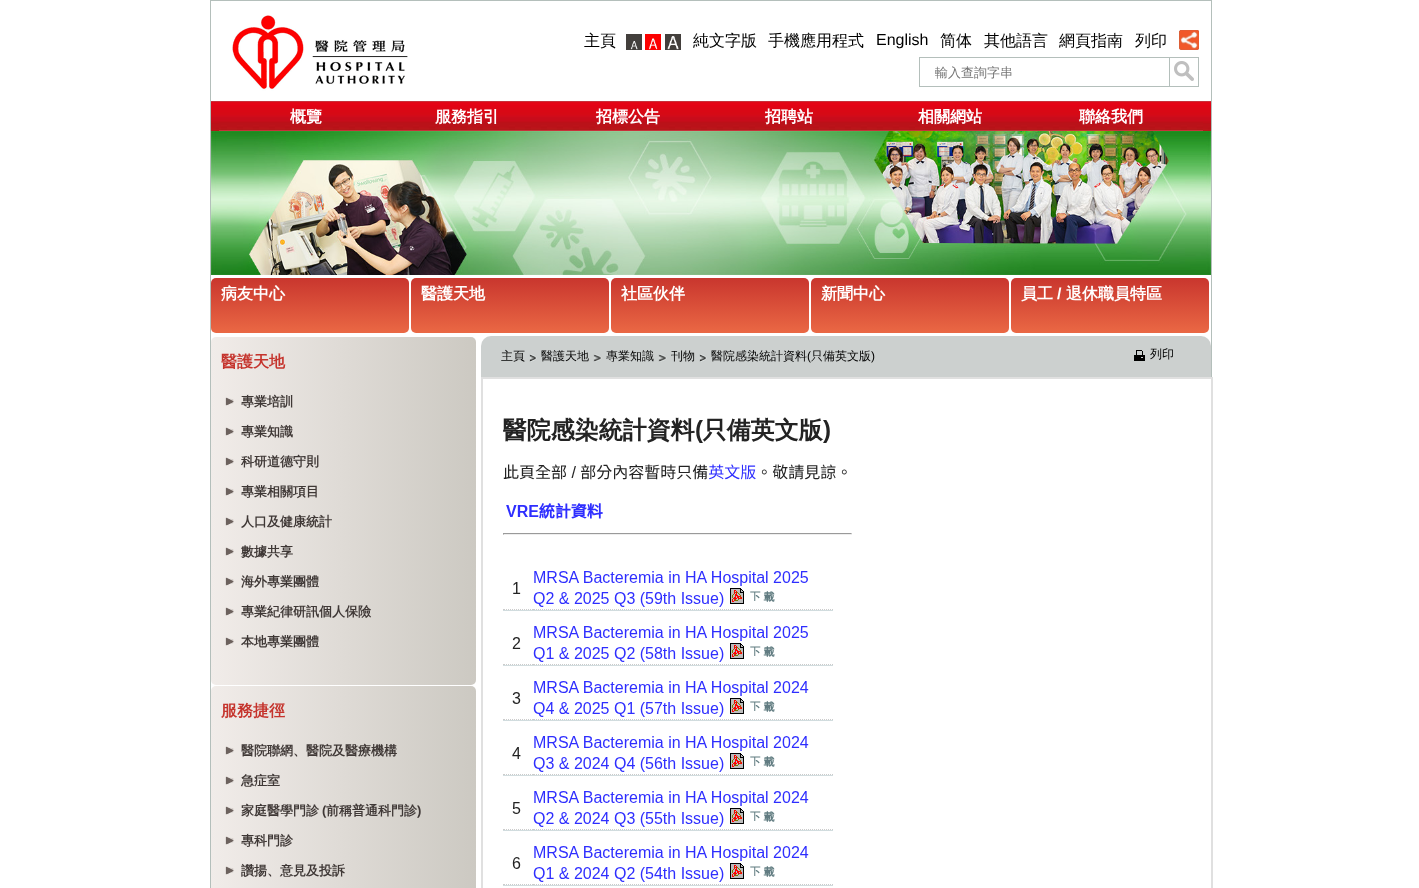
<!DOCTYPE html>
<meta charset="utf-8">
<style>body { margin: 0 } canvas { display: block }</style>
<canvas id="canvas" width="1419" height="888"></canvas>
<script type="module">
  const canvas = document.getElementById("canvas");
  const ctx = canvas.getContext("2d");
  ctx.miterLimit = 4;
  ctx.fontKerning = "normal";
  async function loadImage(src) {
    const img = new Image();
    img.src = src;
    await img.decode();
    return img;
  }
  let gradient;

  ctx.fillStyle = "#ffffff";
  ctx.fillRect(0, 0, 1419, 888);
  ctx.strokeStyle = "#b4bfbb";
  ctx.strokeRect(210.5, 0.5, 1001, 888);
  ctx.drawImage(await loadImage("img1.png"), 232, 15, 176, 76);
  ctx.font = "500 16px WenQuanYi Zen Hei";
  ctx.fillStyle = "#000000";
  ctx.fillText("主頁", 584, 46);
  ctx.drawImage(await loadImage("img2.png"), 626, 34, 16, 16);
  ctx.drawImage(await loadImage("img3.png"), 645, 34, 16, 16);
  ctx.drawImage(await loadImage("img4.png"), 665, 34, 16, 16);
  ctx.fillText("純文字版", 693, 46);
  ctx.fillText("手機應用程式", 768, 46);
  ctx.font = "16px Liberation Sans";
  ctx.fillText("English", 876, 45);
  ctx.font = "500 16px WenQuanYi Zen Hei";
  ctx.fillText("简体", 940, 46);
  ctx.fillText("其他語言", 984, 46);
  ctx.fillText("網頁指南", 1059, 46);
  ctx.fillText("列印", 1135, 46);
  ctx.drawImage(await loadImage("img5.png"), 1179, 30, 20, 20);
  ctx.fillStyle = "#b4bfbb";
  ctx.fillRect(919, 57, 250, 1);
  ctx.fillRect(919, 86, 250, 1);
  ctx.fillRect(919, 57, 1, 30);
  ctx.save();
  ctx.beginPath();
  ctx.rect(935, 64, 219, 18);
  ctx.clip();
  ctx.font = "500 13px WenQuanYi Zen Hei";
  ctx.fillStyle = "#757575";
  ctx.fillText("輸入查詢字串", 935, 77);
  ctx.restore();
  ctx.drawImage(await loadImage("img6.png"), 1174, 61, 20, 20);
  ctx.strokeRect(1169.5, 57.5, 29, 29);
  ctx.drawImage(await loadImage("img7.png"), 211, 101, 1000, 30);
  ctx.font = "bold 16px WenQuanYi Zen Hei";
  ctx.fillStyle = "#ffffff";
  ctx.fillText("概覽", 290, 122);
  ctx.fillText("服務指引", 435, 122);
  ctx.fillText("招標公告", 596, 122);
  ctx.fillText("招聘站", 765, 122);
  ctx.fillText("相關網站", 918, 122);
  ctx.fillText("聯絡我們", 1079, 122);
  ctx.drawImage(await loadImage("img8.png"), 211, 122, 8, 9);
  ctx.drawImage(await loadImage("img8.png"), 1203, 122, 8, 9);
  ctx.drawImage(await loadImage("img9.png"), 211, 131, 1000, 144);
  gradient = ctx.createLinearGradient(211, 278, 211, 333);
  gradient.addColorStop(0, "#c9362e");
  gradient.addColorStop(1, "#ea6844");
  ctx.fillStyle = gradient;
  ctx.beginPath();
  ctx.roundRect(211, 278, 198, 55, 5);
  ctx.fill();
  ctx.fillStyle = "#ffffff";
  ctx.fillText("病友中心", 221, 299);
  gradient = ctx.createLinearGradient(411, 278, 411, 333);
  gradient.addColorStop(0, "#c9362e");
  gradient.addColorStop(1, "#ea6844");
  ctx.fillStyle = gradient;
  ctx.beginPath();
  ctx.roundRect(411, 278, 198, 55, 5);
  ctx.fill();
  ctx.fillStyle = "#ffffff";
  ctx.fillText("醫護天地", 421, 299);
  gradient = ctx.createLinearGradient(611, 278, 611, 333);
  gradient.addColorStop(0, "#c9362e");
  gradient.addColorStop(1, "#ea6844");
  ctx.fillStyle = gradient;
  ctx.beginPath();
  ctx.roundRect(611, 278, 198, 55, 5);
  ctx.fill();
  ctx.fillStyle = "#ffffff";
  ctx.fillText("社區伙伴", 621, 299);
  gradient = ctx.createLinearGradient(811, 278, 811, 333);
  gradient.addColorStop(0, "#c9362e");
  gradient.addColorStop(1, "#ea6844");
  ctx.fillStyle = gradient;
  ctx.beginPath();
  ctx.roundRect(811, 278, 198, 55, 5);
  ctx.fill();
  ctx.fillStyle = "#ffffff";
  ctx.fillText("新聞中心", 821, 299);
  gradient = ctx.createLinearGradient(1011, 278, 1011, 333);
  gradient.addColorStop(0, "#c9362e");
  gradient.addColorStop(1, "#ea6844");
  ctx.fillStyle = gradient;
  ctx.beginPath();
  ctx.roundRect(1011, 278, 198, 55, 5);
  ctx.fill();
  ctx.fillStyle = "#ffffff";
  ctx.fillText("員工", 1021, 299);
  ctx.font = "bold 16px Liberation Sans";
  ctx.fillText("/", 1057, 299);
  ctx.font = "bold 16px WenQuanYi Zen Hei";
  ctx.fillText("退休職員特區", 1066, 299);
  gradient = ctx.createLinearGradient(211, 511, 476, 511);
  gradient.addColorStop(0, "#f1ece9");
  gradient.addColorStop(1, "#ccc9c2");
  ctx.fillStyle = gradient;
  ctx.beginPath();
  ctx.roundRect(211, 337, 265, 348, 5);
  ctx.fill();
  ctx.fillStyle = "#c5342d";
  ctx.fillText("醫護天地", 221, 367);
  ctx.drawImage(await loadImage("img10.png"), 225, 397, 9, 9);
  ctx.font = "bold 13px WenQuanYi Zen Hei";
  ctx.fillStyle = "#3f3836";
  ctx.fillText("專業培訓", 241, 406);
  ctx.drawImage(await loadImage("img10.png"), 225, 427, 9, 9);
  ctx.fillText("專業知識", 241, 436);
  ctx.drawImage(await loadImage("img10.png"), 225, 457, 9, 9);
  ctx.fillText("科研道德守則", 241, 466);
  ctx.drawImage(await loadImage("img10.png"), 225, 487, 9, 9);
  ctx.fillText("專業相關項目", 241, 496);
  ctx.drawImage(await loadImage("img10.png"), 225, 517, 9, 9);
  ctx.fillText("人口及健康統計", 241, 526);
  ctx.drawImage(await loadImage("img10.png"), 225, 547, 9, 9);
  ctx.fillText("數據共享", 241, 556);
  ctx.drawImage(await loadImage("img10.png"), 225, 577, 9, 9);
  ctx.fillText("海外專業團體", 241, 586);
  ctx.drawImage(await loadImage("img10.png"), 225, 607, 9, 9);
  ctx.fillText("專業紀律研訊個人保險", 241, 616);
  ctx.drawImage(await loadImage("img10.png"), 225, 637, 9, 9);
  ctx.fillText("本地專業團體", 241, 646);
  gradient = ctx.createLinearGradient(211, 807, 476, 807);
  gradient.addColorStop(0, "#f1ece9");
  gradient.addColorStop(1, "#ccc9c2");
  ctx.fillStyle = gradient;
  ctx.beginPath();
  ctx.roundRect(211, 686, 265, 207, 5);
  ctx.fill();
  ctx.font = "bold 16px WenQuanYi Zen Hei";
  ctx.fillStyle = "#c5342d";
  ctx.fillText("服務捷徑", 221, 716);
  ctx.drawImage(await loadImage("img10.png"), 225, 746, 9, 9);
  ctx.font = "bold 13px WenQuanYi Zen Hei";
  ctx.fillStyle = "#3f3836";
  ctx.fillText("醫院聯網、醫院及醫療機構", 241, 755);
  ctx.drawImage(await loadImage("img10.png"), 225, 776, 9, 9);
  ctx.fillText("急症室", 241, 785);
  ctx.drawImage(await loadImage("img10.png"), 225, 806, 9, 9);
  ctx.fillText("家庭醫學門診", 241, 815);
  ctx.font = "bold 13px Liberation Sans";
  ctx.fillText("(", 322, 815);
  ctx.font = "bold 13px WenQuanYi Zen Hei";
  ctx.fillText("前稱普通科門診", 326, 815);
  ctx.font = "bold 13px Liberation Sans";
  ctx.fillText(")", 417, 815);
  ctx.drawImage(await loadImage("img10.png"), 225, 836, 9, 9);
  ctx.font = "bold 13px WenQuanYi Zen Hei";
  ctx.fillText("專科門診", 241, 845);
  ctx.drawImage(await loadImage("img10.png"), 225, 866, 9, 9);
  ctx.fillText("讚揚、意見及投訴", 241, 875);
  ctx.fillStyle = "#ccd0cf";
  ctx.beginPath();
  ctx.roundRect(481, 336, 730, 41, [10, 10, 0, 0]);
  ctx.fill();
  ctx.font = "500 12px WenQuanYi Zen Hei";
  ctx.fillStyle = "#000000";
  ctx.fillText("主頁", 501, 360);
  ctx.drawImage(await loadImage("img11.png"), 529, 354, 8, 8);
  ctx.fillText("醫護天地", 541, 360);
  ctx.drawImage(await loadImage("img12.png"), 593, 354, 9, 8);
  ctx.fillText("專業知識", 606, 360);
  ctx.drawImage(await loadImage("img12.png"), 658, 354, 9, 8);
  ctx.fillText("刊物", 671, 360);
  ctx.drawImage(await loadImage("img11.png"), 699, 354, 8, 8);
  ctx.fillText("醫院感染統計資料", 711, 360);
  ctx.font = "12px Liberation Sans";
  ctx.fillText("(", 807, 360);
  ctx.font = "500 12px WenQuanYi Zen Hei";
  ctx.fillText("只備英文版", 811, 360);
  ctx.font = "12px Liberation Sans";
  ctx.fillText(")", 871, 360);
  ctx.drawImage(await loadImage("img13.png"), 1134, 350, 11, 11);
  ctx.font = "500 12px WenQuanYi Zen Hei";
  ctx.fillText("列印", 1150, 358);
  ctx.strokeStyle = "#e0e0e0";
  ctx.lineWidth = 2;
  ctx.strokeRect(482, 378, 730, 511);
  ctx.drawImage(await loadImage("img14.png"), 503, 417, 349, 469);
</script>
